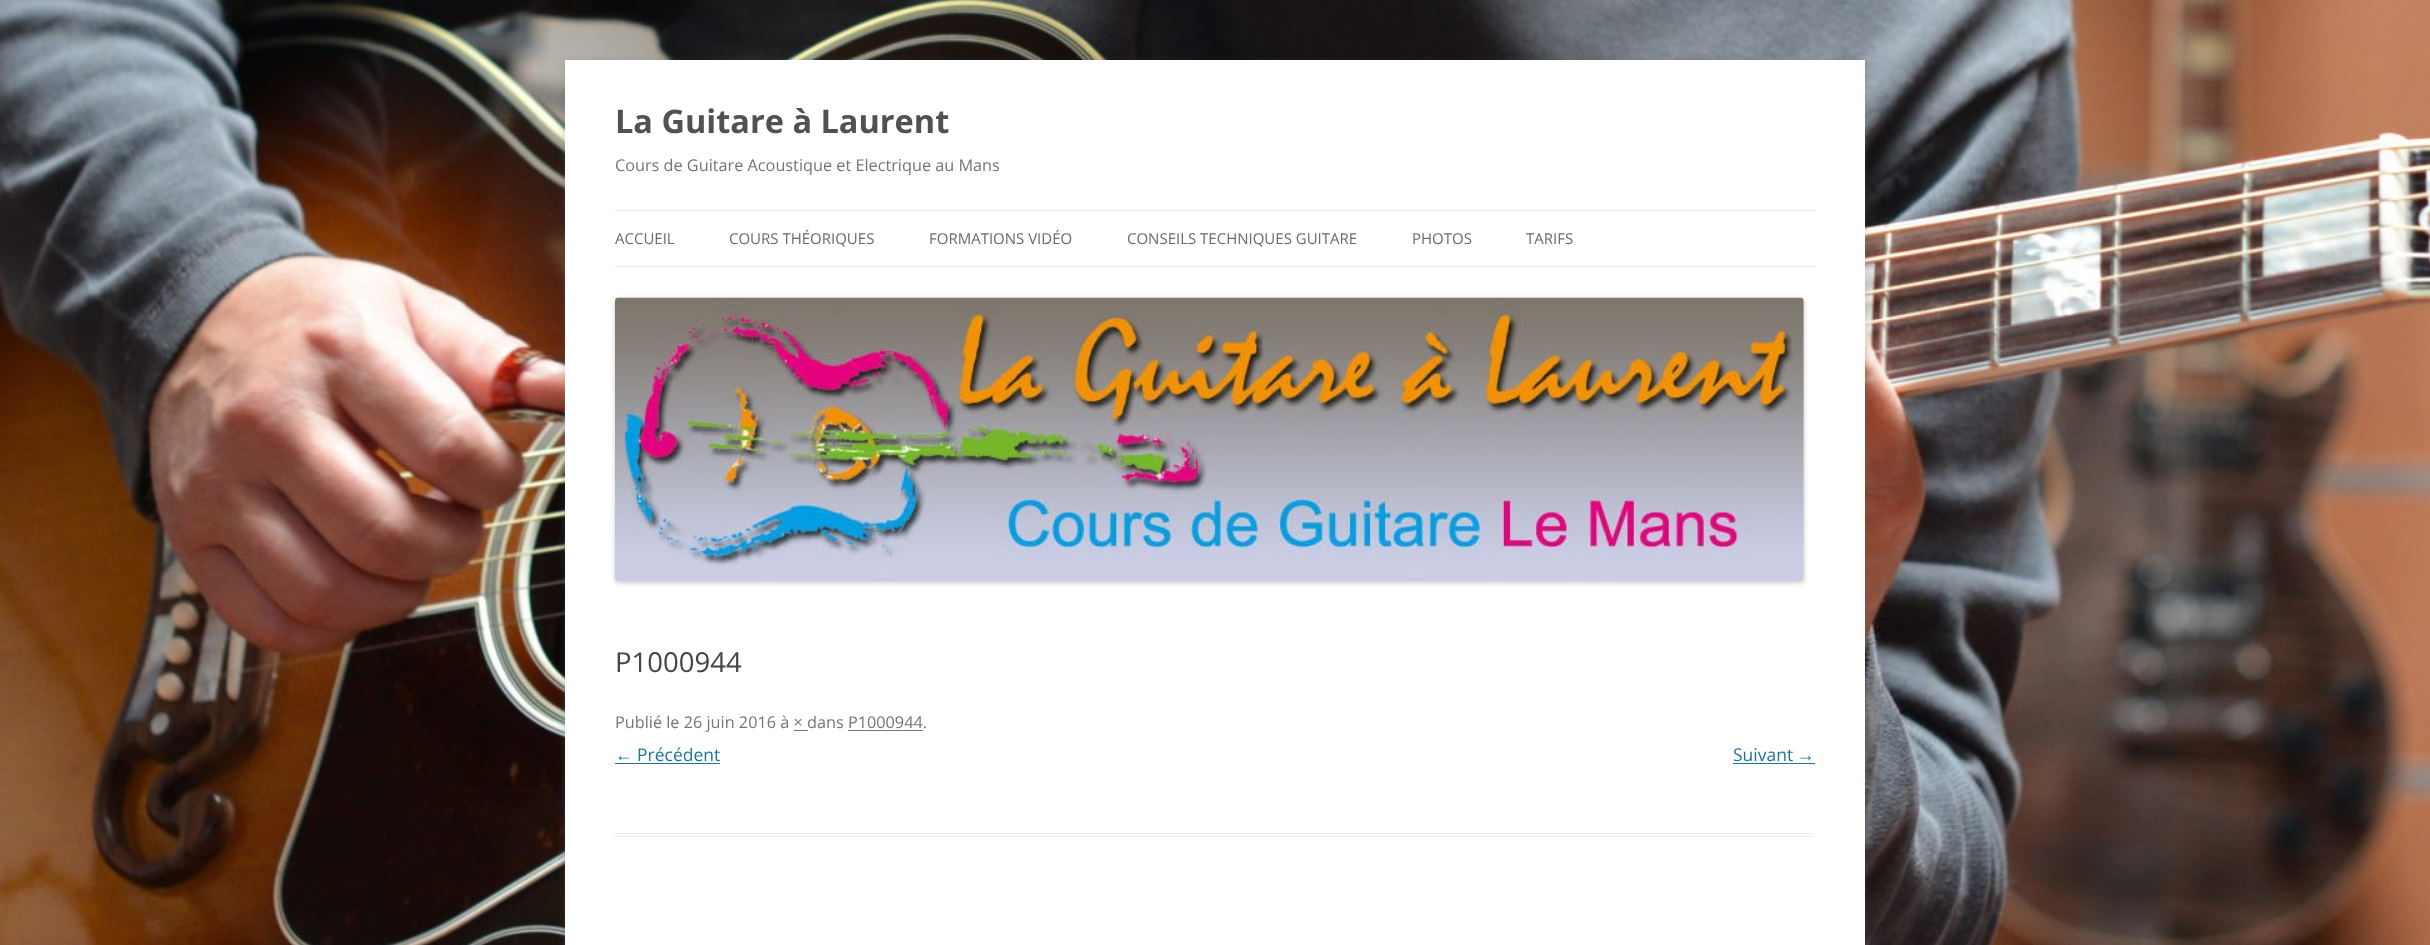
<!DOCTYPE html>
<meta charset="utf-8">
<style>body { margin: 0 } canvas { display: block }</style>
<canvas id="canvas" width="2430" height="945"></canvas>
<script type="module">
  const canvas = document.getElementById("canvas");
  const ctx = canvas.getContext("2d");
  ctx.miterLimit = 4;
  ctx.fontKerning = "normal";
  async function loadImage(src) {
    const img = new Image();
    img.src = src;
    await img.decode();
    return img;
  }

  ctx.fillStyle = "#ffffff";
  ctx.fillRect(0, 0, 2430, 945);
  ctx.drawImage(await loadImage("img1.png"), 0, 0, 2430, 945);
  ctx.fillStyle = "rgba(100, 100, 100, 0.3)";
  ctx.filter = "blur(4px)";
  ctx.beginPath();
  ctx.rect(565, 63, 1300, 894);
  ctx.fill();
  ctx.filter = "none";
  ctx.fillStyle = "#ffffff";
  ctx.fillRect(565, 60, 1300, 885);
  ctx.font = "bold 32.5px Open Sans";
  ctx.fillStyle = "#515151";
  ctx.fillText("La Guitare à Laurent", 615, 133);
  ctx.font = "16.25px Open Sans";
  ctx.fillStyle = "#757575";
  ctx.fillText("Cours de Guitare Acoustique et Electrique au Mans", 615, 171);
  ctx.fillStyle = "#ededed";
  ctx.fillRect(615, 210, 1200, 1);
  ctx.fillRect(615, 266, 1200, 1);
  ctx.font = "15px Open Sans";
  ctx.fillStyle = "#6a6a6a";
  ctx.fillText("ACCUEIL", 615, 244);
  ctx.fillText("COURS THÉORIQUES", 729, 244);
  ctx.fillText("FORMATIONS VIDÉO", 929, 244);
  ctx.fillText("CONSEILS TECHNIQUES GUITARE", 1127, 244);
  ctx.fillText("PHOTOS", 1412, 244);
  ctx.fillText("TARIFS", 1526, 244);
  ctx.fillStyle = "rgba(0, 0, 0, 0.2)";
  ctx.filter = "blur(2.5px)";
  ctx.beginPath();
  ctx.roundRect(615, 299, 1189, 284, 4);
  ctx.fill();
  ctx.filter = "none";
  ctx.drawImage(await loadImage("img2.png"), 615, 297, 1189, 284);
  ctx.fillStyle = "#ededed";
  ctx.fillRect(615, 833, 1200, 1);
  ctx.fillRect(615, 836, 1200, 1);
  ctx.font = "27.5px Open Sans";
  ctx.fillStyle = "#444444";
  ctx.fillText("P1000944", 615, 672);
  ctx.font = "16.25px Open Sans";
  ctx.fillStyle = "#757575";
  ctx.fillText("Publié le 26 juin 2016 à × dans P1000944.", 615, 728);
  ctx.fillRect(794, 730, 14, 1);
  ctx.fillRect(848, 730, 75, 1);
  ctx.font = "17.5px Liberation Sans";
  ctx.fillStyle = "#21759b";
  ctx.fillText("←", 615, 761);
  ctx.fillRect(615, 763, 105, 1);
  ctx.font = "17.5px Open Sans";
  ctx.fillText("Précédent", 637, 761);
  ctx.fillText("Suivant", 1733, 761);
  ctx.font = "17.5px Liberation Sans";
  ctx.fillText("→", 1797, 761);
  ctx.fillRect(1733, 763, 82, 1);
</script>
